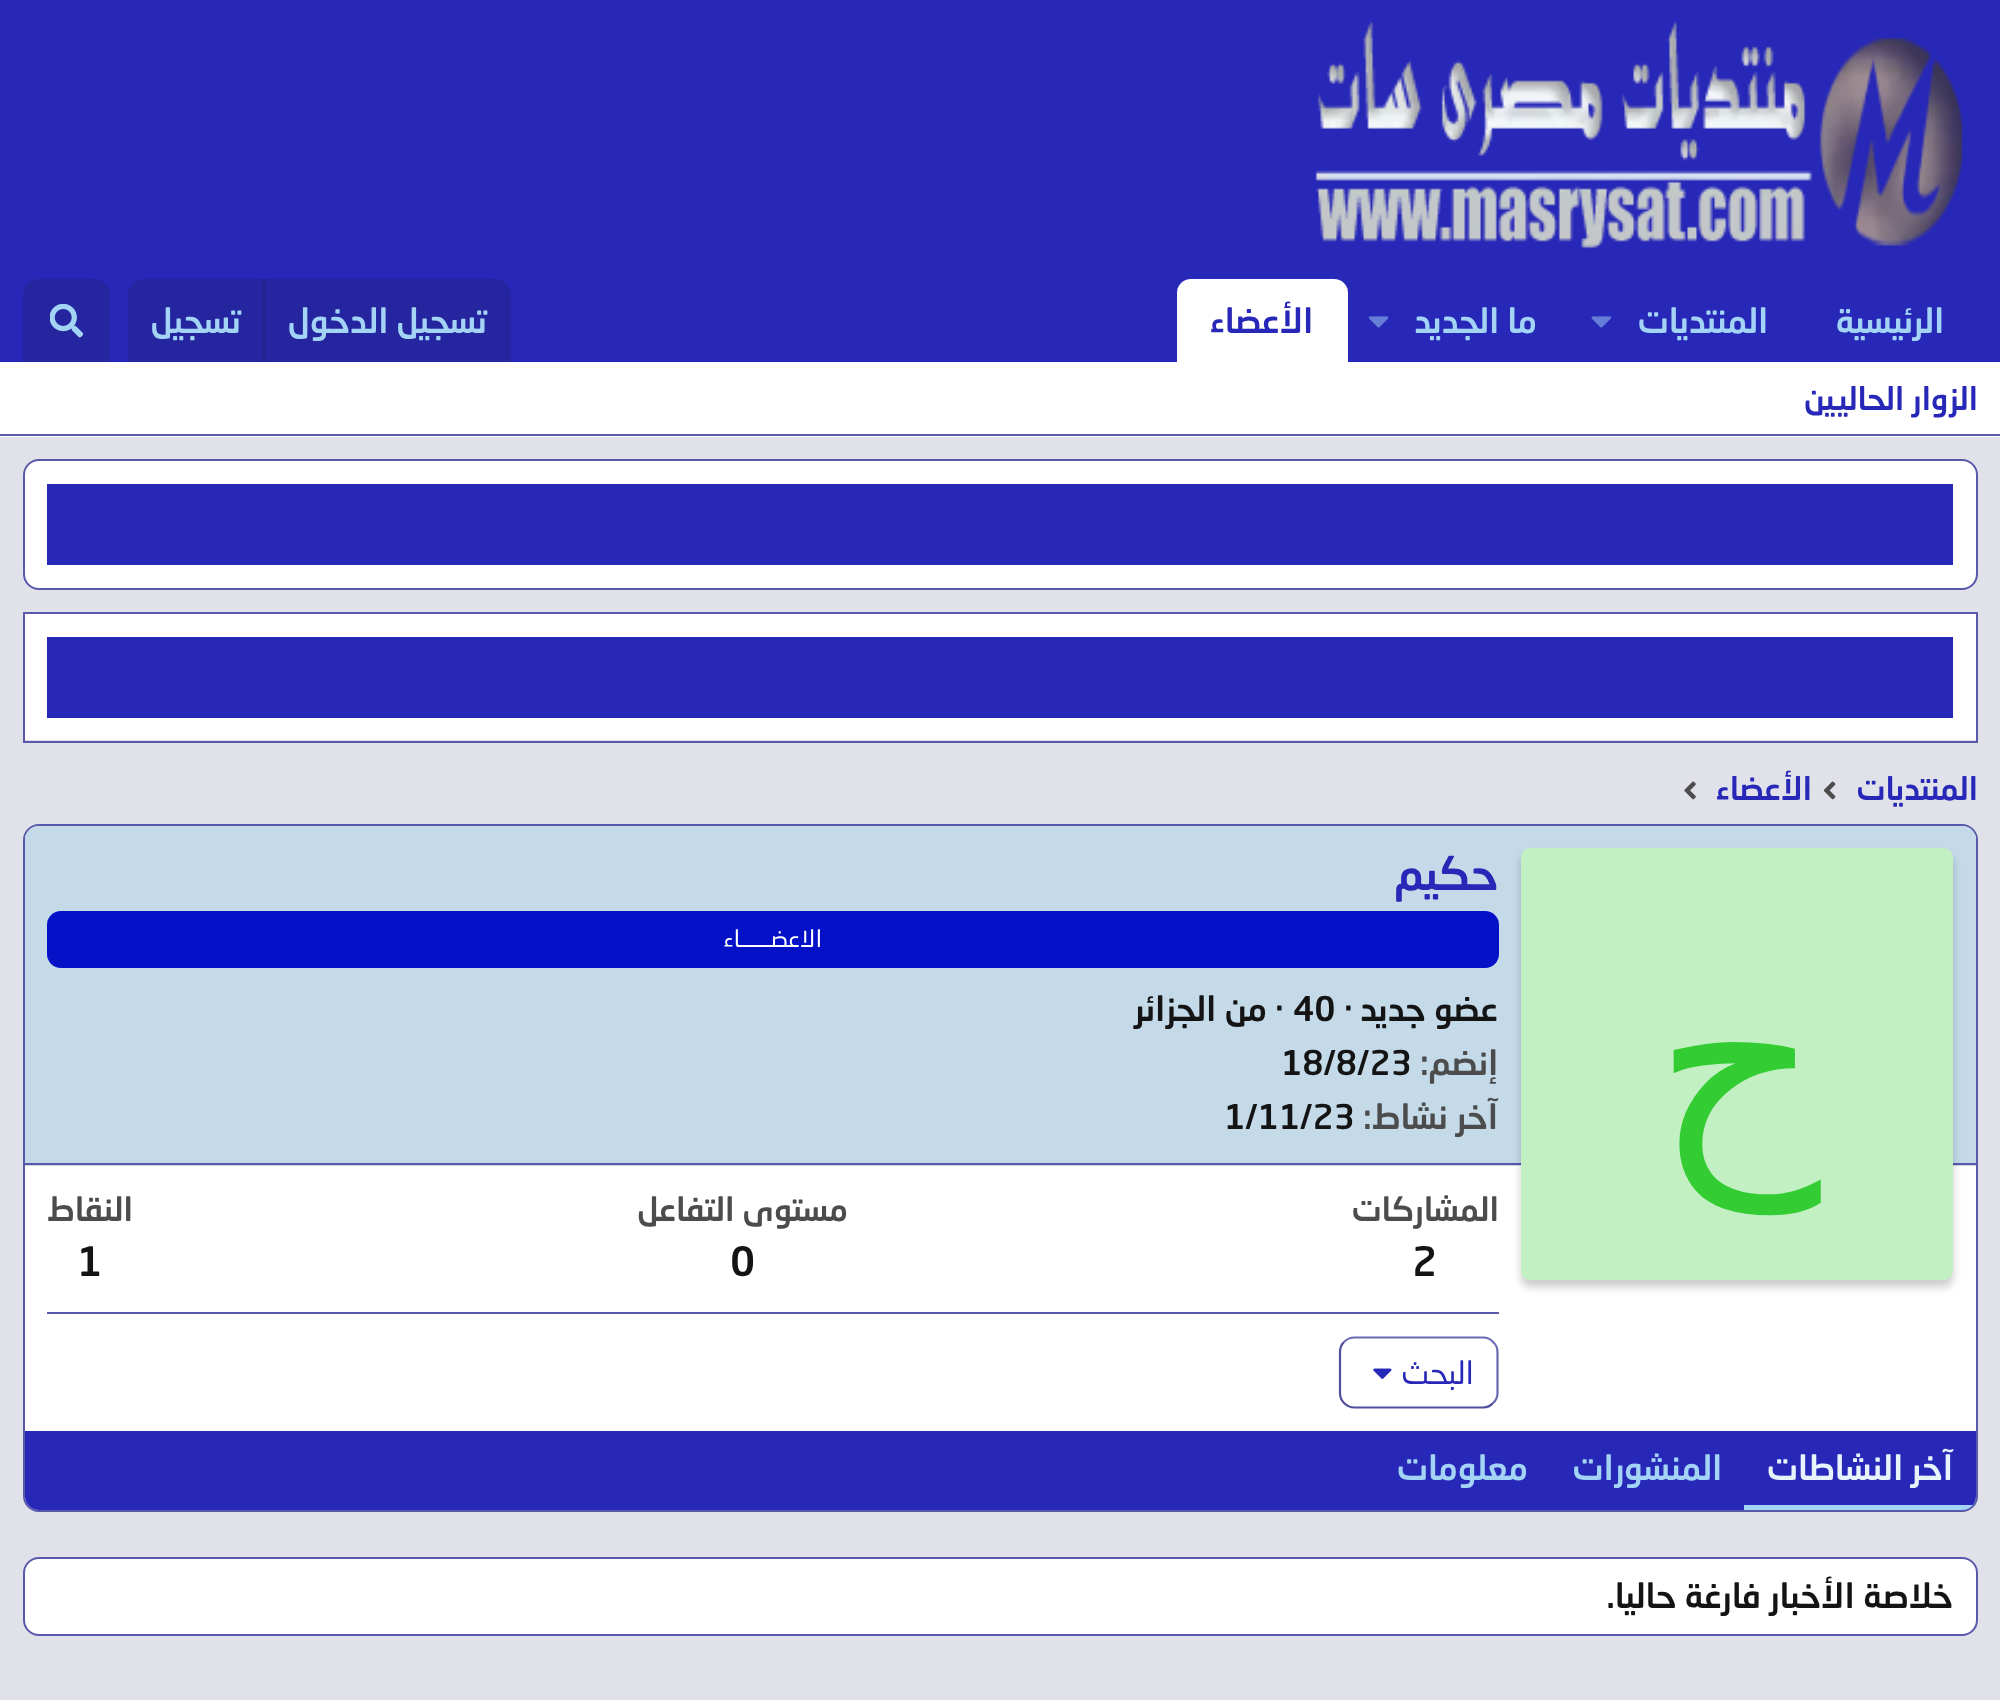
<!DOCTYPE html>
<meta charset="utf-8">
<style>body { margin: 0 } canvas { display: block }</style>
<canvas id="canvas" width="2000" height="1700"></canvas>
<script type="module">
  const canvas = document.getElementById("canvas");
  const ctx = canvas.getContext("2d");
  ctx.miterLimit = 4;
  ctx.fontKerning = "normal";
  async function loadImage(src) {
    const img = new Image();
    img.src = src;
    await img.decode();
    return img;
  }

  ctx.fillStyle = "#e1e1ea";
  ctx.fillRect(0, 0, 2000, 1700);
  ctx.fillStyle = "#2828b8";
  ctx.fillRect(0, 0, 2000, 362);
  ctx.drawImage(await loadImage("img1.png"), 1315, 22, 648, 227);
  ctx.direction = "rtl";
  ctx.font = "500 33.75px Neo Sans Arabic";
  ctx.fillStyle = "#a3d4f5";
  ctx.fillText("الرئيسية", 1944, 333);
  ctx.fillText("المنتديات", 1768, 333);
  ctx.drawImage(await loadImage("img2.png"), 1591, 316, 20, 12);
  ctx.fillText("ما الجديد", 1537, 333);
  ctx.drawImage(await loadImage("img3.png"), 1368, 316, 20, 12);
  ctx.fillStyle = "#ffffff";
  ctx.beginPath();
  ctx.roundRect(1177, 279, 171, 83, [14, 14, 0, 0]);
  ctx.fill();
  ctx.fillStyle = "#2828b8";
  ctx.fillText("الأعضاء", 1313, 333);
  ctx.fillStyle = "#25259f";
  ctx.beginPath();
  ctx.roundRect(128, 279, 383, 83, [16, 16, 0, 0]);
  ctx.fill();
  ctx.fillStyle = "#a3d4f5";
  ctx.fillText("تسجيل الدخول", 487, 333);
  ctx.fillStyle = "#22228a";
  ctx.fillRect(263, 279, 2, 83);
  ctx.fillStyle = "#a3d4f5";
  ctx.fillText("تسجيل", 241, 333);
  ctx.fillStyle = "#25259f";
  ctx.beginPath();
  ctx.roundRect(23, 279, 87, 83, [16, 16, 0, 0]);
  ctx.fill();
  ctx.drawImage(await loadImage("img4.png"), 50, 304, 33, 34);
  ctx.fillStyle = "#ffffff";
  ctx.fillRect(0, 362, 2000, 75);
  ctx.fillStyle = "#5959ab";
  ctx.fillRect(0, 434, 2000, 2);
  ctx.font = "500 31.5px Neo Sans Arabic";
  ctx.fillStyle = "#2828b8";
  ctx.fillText("الزوار الحاليين", 1978, 410);
  ctx.fillStyle = "#ffffff";
  ctx.beginPath();
  ctx.roundRect(24, 460, 1953, 129, 15);
  ctx.fill();
  ctx.strokeStyle = "#5959ab";
  ctx.lineWidth = 2;
  ctx.stroke();
  ctx.fillStyle = "#2828b8";
  ctx.fillRect(47, 484, 1906, 81);
  ctx.strokeRect(24, 613, 1953, 129);
  ctx.fillStyle = "#ffffff";
  ctx.fillRect(25, 614, 1951, 126);
  ctx.fillStyle = "#2828b8";
  ctx.fillRect(47, 637, 1906, 81);
  ctx.fillText("المنتديات", 1978, 800);
  ctx.drawImage(await loadImage("img5.png"), 1823, 781, 13, 19);
  ctx.fillText("الأعضاء", 1812, 800);
  ctx.drawImage(await loadImage("img6.png"), 1684, 781, 12, 19);
  ctx.fillStyle = "#ffffff";
  ctx.beginPath();
  ctx.roundRect(24, 825, 1953, 686, 15);
  ctx.fill();
  ctx.stroke();
  ctx.fillStyle = "#c4dae9";
  ctx.beginPath();
  ctx.roundRect(25, 826, 1951, 340, [14, 14, 0, 0]);
  ctx.fill();
  ctx.fillStyle = "#5959ab";
  ctx.fillRect(25, 1163, 1951, 2);
  ctx.fillStyle = "rgba(0, 0, 0, 0.2)";
  ctx.filter = "blur(4.5px)";
  ctx.beginPath();
  ctx.roundRect(1521, 855, 432, 432, 9);
  ctx.fill();
  ctx.filter = "none";
  ctx.fillStyle = "#c2f0c2";
  ctx.beginPath();
  ctx.roundRect(1521, 848, 432, 432, 9);
  ctx.fill();
  ctx.font = "259px DejaVu Sans";
  ctx.fillStyle = "#33cc33";
  ctx.fillText("ح", 1821, 1152);
  ctx.font = "500 45px Neo Sans Arabic";
  ctx.fillStyle = "#2828b8";
  ctx.fillText("حكيم", 1498, 890);
  ctx.fillStyle = "#0411c7";
  ctx.beginPath();
  ctx.roundRect(47, 911, 1452, 57, 14);
  ctx.fill();
  ctx.font = "23.5px Neo Sans Arabic";
  ctx.fillStyle = "#ffffff";
  ctx.fillText("الاعضــــــاء", 822, 947);
  ctx.font = "500 33.75px Neo Sans Arabic";
  ctx.fillStyle = "#141414";
  ctx.fillText("عضو جديد", 1498, 1021);
  ctx.direction = "ltr";
  ctx.fillText("·", 1344, 1021);
  ctx.fillText("40", 1293, 1021);
  ctx.fillText("·", 1275, 1021);
  ctx.direction = "rtl";
  ctx.fillText("من", 1267, 1021);
  ctx.fillText("الجزائر", 1216, 1021);
  ctx.fillStyle = "#4c4c4d";
  ctx.fillText("إنضم", 1498, 1075);
  ctx.direction = "ltr";
  ctx.fillText(":", 1420, 1075);
  ctx.fillStyle = "#141414";
  ctx.fillText("18/8/23", 1281, 1075);
  ctx.direction = "rtl";
  ctx.fillStyle = "#4c4c4d";
  ctx.fillText("آخر نشاط", 1498, 1129);
  ctx.direction = "ltr";
  ctx.fillText(":", 1363, 1129);
  ctx.fillStyle = "#141414";
  ctx.fillText("1/11/23", 1224, 1129);
  ctx.direction = "rtl";
  ctx.font = "500 32.5px Neo Sans Arabic";
  ctx.fillStyle = "#4c4c4d";
  ctx.fillText("المشاركات", 1499, 1221);
  ctx.direction = "ltr";
  ctx.font = "500 40px Neo Sans Arabic";
  ctx.fillStyle = "#141414";
  ctx.fillText("2", 1412, 1276);
  ctx.direction = "rtl";
  ctx.font = "500 32.5px Neo Sans Arabic";
  ctx.fillStyle = "#4c4c4d";
  ctx.fillText("مستوى التفاعل", 848, 1221);
  ctx.direction = "ltr";
  ctx.font = "500 40px Neo Sans Arabic";
  ctx.fillStyle = "#141414";
  ctx.fillText("0", 730, 1276);
  ctx.direction = "rtl";
  ctx.font = "500 32.5px Neo Sans Arabic";
  ctx.fillStyle = "#4c4c4d";
  ctx.fillText("النقاط", 133, 1221);
  ctx.direction = "ltr";
  ctx.font = "500 40px Neo Sans Arabic";
  ctx.fillStyle = "#141414";
  ctx.fillText("1", 77, 1276);
  ctx.fillStyle = "#5959ab";
  ctx.fillRect(47, 1312, 1452, 2);
  ctx.beginPath();
  ctx.moveTo(1344, 1342);
  ctx.bezierCurveTo(1347, 1339, 1350.5, 1337.5, 1354.5, 1337.5);
  ctx.lineTo(1483, 1337.5);
  ctx.bezierCurveTo(1486.5, 1337.5, 1490.5, 1339, 1493, 1342);
  ctx.bezierCurveTo(1496, 1344.5, 1497.5, 1348.5, 1497.5, 1352);
  ctx.lineTo(1497.5, 1393);
  ctx.bezierCurveTo(1497.5, 1396.5, 1496, 1400.5, 1493, 1403);
  ctx.strokeStyle = "#6a6ab4";
  ctx.lineWidth = 2.2;
  ctx.stroke();
  ctx.beginPath();
  ctx.moveTo(1493, 1403);
  ctx.bezierCurveTo(1490.5, 1406, 1486.5, 1407.5, 1483, 1407.5);
  ctx.lineTo(1354.5, 1407.5);
  ctx.bezierCurveTo(1350.5, 1407.5, 1347, 1406, 1344, 1403);
  ctx.bezierCurveTo(1341.5, 1400.5, 1340, 1396.5, 1340, 1393);
  ctx.lineTo(1340, 1352);
  ctx.bezierCurveTo(1340, 1348.5, 1341.5, 1344.5, 1344, 1342);
  ctx.strokeStyle = "#4f4f9c";
  ctx.stroke();
  ctx.direction = "rtl";
  ctx.font = "31.5px Neo Sans Arabic";
  ctx.fillStyle = "#2828b8";
  ctx.fillText("البحث", 1474, 1384);
  ctx.drawImage(await loadImage("img7.png"), 1373, 1368, 19, 11);
  ctx.beginPath();
  ctx.roundRect(25, 1431, 1951, 79, [0, 0, 14, 14]);
  ctx.fill();
  ctx.save();
  ctx.beginPath();
  ctx.roundRect(25, 1431, 1951, 79, [0, 0, 14, 14]);
  ctx.clip();
  ctx.fillStyle = "#a3d4f5";
  ctx.fillRect(1744, 1505, 232, 5);
  ctx.restore();
  ctx.font = "500 33.75px Neo Sans Arabic";
  ctx.fillStyle = "#e8f4fc";
  ctx.fillText("آخر النشاطات", 1953, 1480);
  ctx.fillStyle = "#a3d4f5";
  ctx.fillText("المنشورات", 1722, 1480);
  ctx.fillText("معلومات", 1528, 1480);
  ctx.fillStyle = "#ffffff";
  ctx.beginPath();
  ctx.roundRect(24, 1558, 1953, 77, 15);
  ctx.fill();
  ctx.strokeStyle = "#5959ab";
  ctx.lineWidth = 2;
  ctx.stroke();
  ctx.fillStyle = "#141414";
  ctx.fillText("خلاصة الأخبار فارغة حاليا.", 1953, 1608);
</script>
